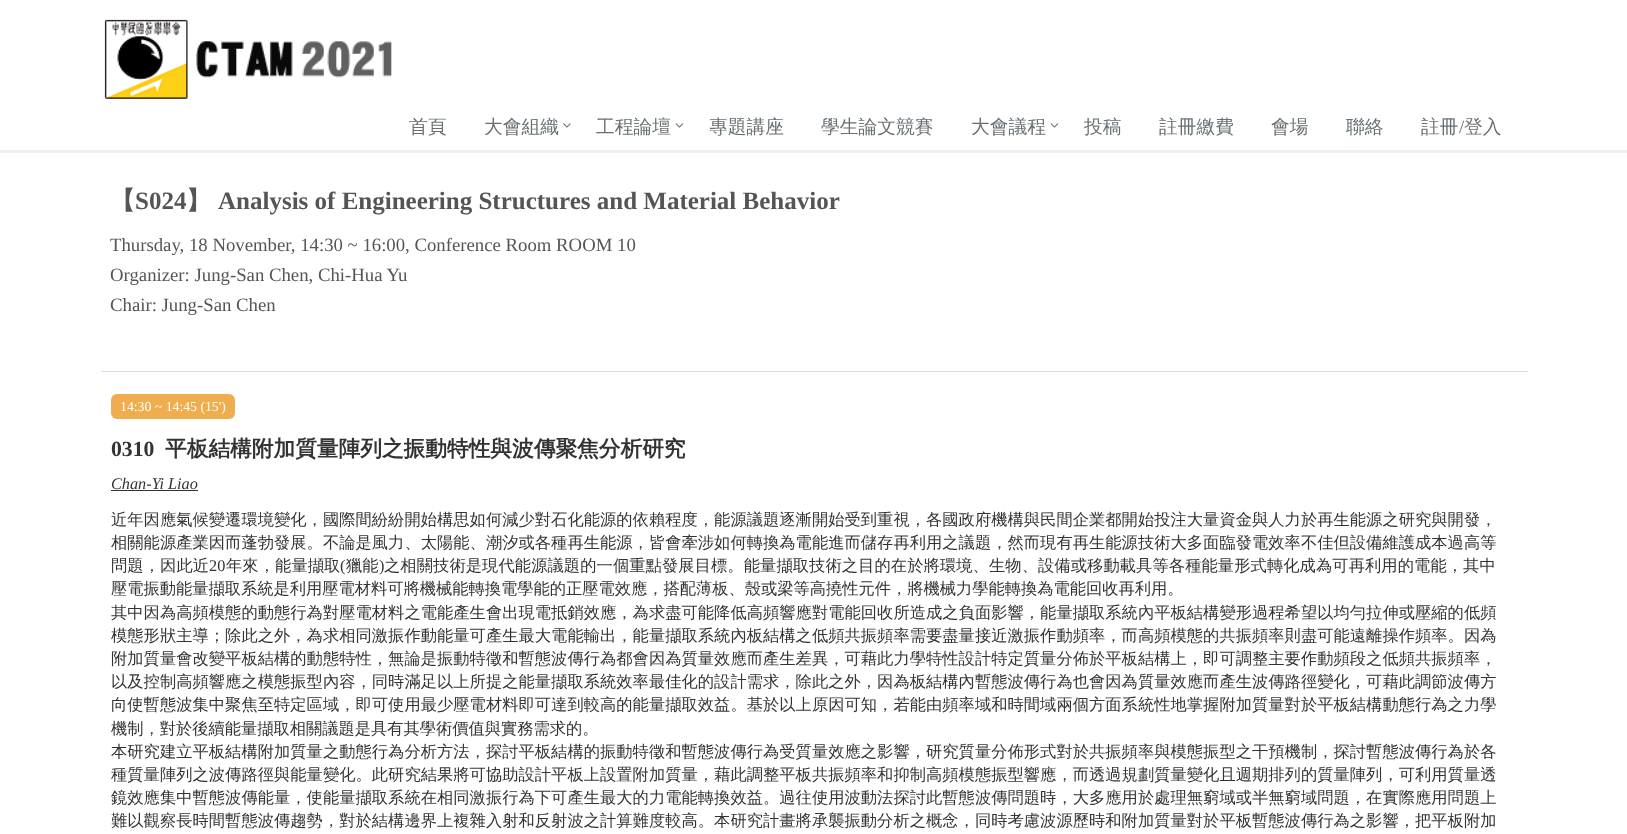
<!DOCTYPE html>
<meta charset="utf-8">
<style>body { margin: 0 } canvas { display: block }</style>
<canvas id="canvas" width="1627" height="834"></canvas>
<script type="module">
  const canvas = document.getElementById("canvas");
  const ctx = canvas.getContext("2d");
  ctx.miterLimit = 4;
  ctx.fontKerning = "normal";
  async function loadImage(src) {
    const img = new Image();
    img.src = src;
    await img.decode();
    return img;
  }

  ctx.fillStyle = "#ffffff";
  ctx.fillRect(0, 0, 1627, 834);
  ctx.fillStyle = "#eeeeee";
  ctx.fillRect(0, 150, 1627, 3);
  ctx.drawImage(await loadImage("img1.png"), 104, 19, 288, 80);
  ctx.font = "500 18.75px WenQuanYi Zen Hei";
  ctx.fillStyle = "#687074";
  ctx.fillText("首頁", 409, 133);
  ctx.fillText("大會組織", 484, 133);
  ctx.drawImage(await loadImage("img2.png"), 563, 123, 8, 5);
  ctx.fillText("工程論壇", 596, 133);
  ctx.drawImage(await loadImage("img3.png"), 675, 123, 9, 5);
  ctx.fillText("專題講座", 709, 133);
  ctx.fillText("學生論文競賽", 821, 133);
  ctx.fillText("大會議程", 971, 133);
  ctx.drawImage(await loadImage("img3.png"), 1050, 123, 9, 5);
  ctx.fillText("投稿", 1084, 133);
  ctx.fillText("註冊繳費", 1159, 133);
  ctx.fillText("會場", 1271, 133);
  ctx.fillText("聯絡", 1346, 133);
  ctx.fillText("註冊", 1421, 133);
  ctx.font = "18.75px Liberation Serif";
  ctx.fillText("/", 1459, 133);
  ctx.font = "500 18.75px WenQuanYi Zen Hei";
  ctx.fillText("登入", 1464, 133);
  ctx.font = "bold 25px WenQuanYi Zen Hei";
  ctx.fillStyle = "#555555";
  ctx.fillText("【", 110, 209);
  ctx.font = "bold 25px Liberation Serif";
  ctx.fillText("S024", 135, 209);
  ctx.font = "bold 25px WenQuanYi Zen Hei";
  ctx.fillText("】", 186, 209);
  ctx.font = "bold 25px Liberation Serif";
  ctx.fillText("Analysis of Engineering Structures and Material Behavior", 218, 209);
  ctx.font = "18.75px Liberation Serif";
  ctx.fillText("Thursday, 18 November, 14:30 ~ 16:00, Conference Room ROOM 10", 110, 251);
  ctx.fillText("Organizer: Jung-San Chen, Chi-Hua Yu", 110, 281);
  ctx.fillText("Chair: Jung-San Chen", 110, 311);
  ctx.fillStyle = "#dddddd";
  ctx.fillRect(101, 371, 1427, 1);
  ctx.fillStyle = "#f0ad4e";
  ctx.beginPath();
  ctx.roundRect(111, 394, 124, 25, 6);
  ctx.fill();
  ctx.font = "13.75px Liberation Serif";
  ctx.fillStyle = "#ffffff";
  ctx.fillText("14:30 ~ 14:45 (15')", 120, 411);
  ctx.font = "bold 21.7px Liberation Serif";
  ctx.fillStyle = "#333333";
  ctx.fillText("0310", 111, 456);
  ctx.font = "bold 21.7px WenQuanYi Zen Hei";
  ctx.fillText("平板結構附加質量陣列之振動特性與波傳聚焦分析研究", 165, 456);
  ctx.font = "italic 16.25px Liberation Serif";
  ctx.fillText("Chan-Yi Liao", 111, 489);
  ctx.fillRect(111, 490, 87, 1);
  ctx.letterSpacing = "0.05px";
  ctx.font = "500 16.25px WenQuanYi Zen Hei";
  ctx.fillText("近年因應氣候變遷環境變化，國際間紛紛開始構思如何減少對石化能源的依賴程度，能源議題逐漸開始受到重視，各國政府機構與民間企業都開始投注大量資金與人力於再生能源之研究與開發，", 111, 525);
  ctx.fillText("相關能源產業因而蓬勃發展。不論是風力、太陽能、潮汐或各種再生能源，皆會牽涉如何轉換為電能進而儲存再利用之議題，然而現有再生能源技術大多面臨發電效率不佳但設備維護成本過高等", 111, 548);
  ctx.letterSpacing = "0.1px";
  ctx.fillText("問題，因此近", 111, 571);
  ctx.font = "16.25px Liberation Serif";
  ctx.fillText("20", 209, 571);
  ctx.font = "500 16.25px WenQuanYi Zen Hei";
  ctx.fillText("年來，能量擷取", 226, 571);
  ctx.font = "16.25px Liberation Serif";
  ctx.fillText("(", 340, 571);
  ctx.font = "500 16.25px WenQuanYi Zen Hei";
  ctx.fillText("獵能", 346, 571);
  ctx.font = "16.25px Liberation Serif";
  ctx.fillText(")", 379, 571);
  ctx.font = "500 16.25px WenQuanYi Zen Hei";
  ctx.fillText("之相關技術是現代能源議題的一個重點發展目標。能量擷取技術之目的在於將環境、生物、設備或移動載具等各種能量形式轉化成為可再利用的電能，其中", 384, 571);
  ctx.letterSpacing = "0px";
  ctx.fillText("壓電振動能量擷取系統是利用壓電材料可將機械能轉換電學能的正壓電效應，搭配薄板、殼或梁等高撓性元件，將機械力學能轉換為電能回收再利用。", 111, 594);
  ctx.letterSpacing = "0.05px";
  ctx.fillText("其中因為高頻模態的動態行為對壓電材料之電能產生會出現電抵銷效應，為求盡可能降低高頻響應對電能回收所造成之負面影響，能量擷取系統內平板結構變形過程希望以均勻拉伸或壓縮的低頻", 111, 618);
  ctx.fillText("模態形狀主導；除此之外，為求相同激振作動能量可產生最大電能輸出，能量擷取系統內板結構之低頻共振頻率需要盡量接近激振作動頻率，而高頻模態的共振頻率則盡可能遠離操作頻率。因為", 111, 641);
  ctx.fillText("附加質量會改變平板結構的動態特性，無論是振動特徵和暫態波傳行為都會因為質量效應而產生差異，可藉此力學特性設計特定質量分佈於平板結構上，即可調整主要作動頻段之低頻共振頻率，", 111, 664);
  ctx.fillText("以及控制高頻響應之模態振型內容，同時滿足以上所提之能量擷取系統效率最佳化的設計需求，除此之外，因為板結構內暫態波傳行為也會因為質量效應而產生波傳路徑變化，可藉此調節波傳方", 111, 687);
  ctx.fillText("向使暫態波集中聚焦至特定區域，即可使用最少壓電材料即可達到較高的能量擷取效益。基於以上原因可知，若能由頻率域和時間域兩個方面系統性地掌握附加質量對於平板結構動態行為之力學", 111, 710);
  ctx.letterSpacing = "0px";
  ctx.fillText("機制，對於後續能量擷取相關議題是具有其學術價值與實務需求的。", 111, 734);
  ctx.letterSpacing = "0.05px";
  ctx.fillText("本研究建立平板結構附加質量之動態行為分析方法，探討平板結構的振動特徵和暫態波傳行為受質量效應之影響，研究質量分佈形式對於共振頻率與模態振型之干預機制，探討暫態波傳行為於各", 111, 757);
  ctx.fillText("種質量陣列之波傳路徑與能量變化。此研究結果將可協助設計平板上設置附加質量，藉此調整平板共振頻率和抑制高頻模態振型響應，而透過規劃質量變化且週期排列的質量陣列，可利用質量透", 111, 780);
  ctx.fillText("鏡效應集中暫態波傳能量，使能量擷取系統在相同激振行為下可產生最大的力電能轉換效益。過往使用波動法探討此暫態波傳問題時，大多應用於處理無窮域或半無窮域問題，在實際應用問題上", 111, 803);
  ctx.fillText("難以觀察長時間暫態波傳趨勢，對於結構邊界上複雜入射和反射波之計算難度較高。本研究計畫將承襲振動分析之概念，同時考慮波源歷時和附加質量對於平板暫態波傳行為之影響，把平板附加", 111, 826);
</script>
